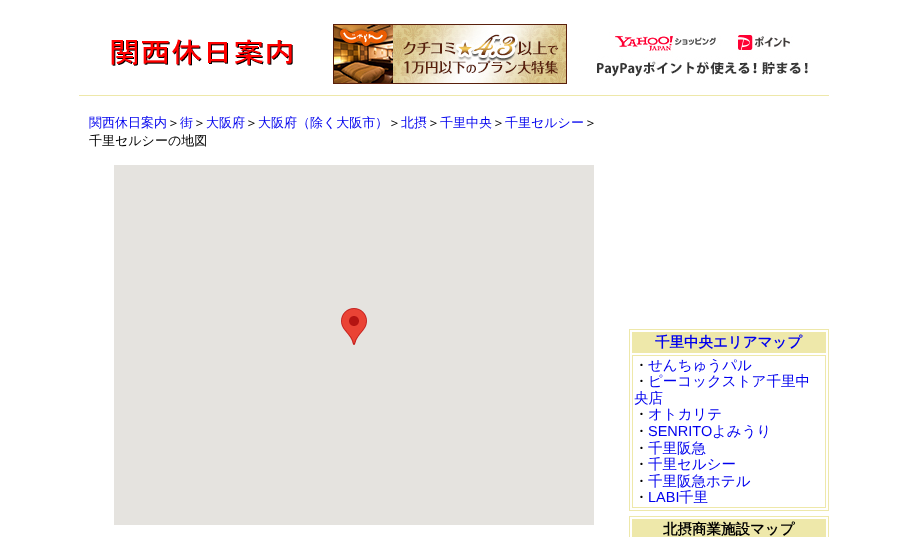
<!DOCTYPE html>
<meta charset="utf-8">
<style>body { margin: 0 } canvas { display: block }</style>
<canvas id="canvas" width="907" height="537"></canvas>
<script type="module">
  const canvas = document.getElementById("canvas");
  const ctx = canvas.getContext("2d");
  ctx.miterLimit = 4;
  ctx.fontKerning = "normal";
  async function loadImage(src) {
    const img = new Image();
    img.src = src;
    await img.decode();
    return img;
  }

  ctx.fillStyle = "#ffffff";
  ctx.fillRect(0, 0, 907, 537);
  ctx.drawImage(await loadImage("img1.png"), 111, 39, 182, 27);
  ctx.drawImage(await loadImage("img2.png"), 333, 24, 234, 60);
  ctx.drawImage(await loadImage("img3.png"), 597, 32, 211, 45);
  ctx.fillStyle = "#eee8aa";
  ctx.fillRect(79, 95, 750, 1);
  ctx.font = "500 13px WenQuanYi Zen Hei";
  ctx.fillStyle = "#0000ee";
  ctx.fillText("関西休日案内", 89, 127);
  ctx.fillStyle = "#000000";
  ctx.fillText("＞", 167, 127);
  ctx.fillStyle = "#0000ee";
  ctx.fillText("街", 180, 127);
  ctx.fillStyle = "#000000";
  ctx.fillText("＞", 193, 127);
  ctx.fillStyle = "#0000ee";
  ctx.fillText("大阪府", 206, 127);
  ctx.fillStyle = "#000000";
  ctx.fillText("＞", 245, 127);
  ctx.fillStyle = "#0000ee";
  ctx.fillText("大阪府（除く大阪市）", 258, 127);
  ctx.fillStyle = "#000000";
  ctx.fillText("＞", 388, 127);
  ctx.fillStyle = "#0000ee";
  ctx.fillText("北摂", 401, 127);
  ctx.fillStyle = "#000000";
  ctx.fillText("＞", 427, 127);
  ctx.fillStyle = "#0000ee";
  ctx.fillText("千里中央", 440, 127);
  ctx.fillStyle = "#000000";
  ctx.fillText("＞", 492, 127);
  ctx.fillStyle = "#0000ee";
  ctx.fillText("千里セルシー", 505, 127);
  ctx.fillStyle = "#000000";
  ctx.fillText("＞", 584, 127);
  ctx.fillText("千里セルシーの地図", 89, 145);
  ctx.fillStyle = "#e5e3df";
  ctx.fillRect(114, 165, 480, 360);
  ctx.drawImage(await loadImage("img4.png"), 341, 308, 26, 37);
  ctx.strokeStyle = "#eee8aa";
  ctx.strokeRect(629.5, 329.5, 199, 181);
  ctx.fillStyle = "#eee8aa";
  ctx.fillRect(632, 332, 194, 21);
  ctx.font = "bold 14.5px WenQuanYi Zen Hei";
  ctx.fillStyle = "#0000ee";
  ctx.fillText("千里中央エリアマップ", 655, 347);
  ctx.strokeRect(632.5, 355.5, 193, 152);
  ctx.font = "500 14.5px WenQuanYi Zen Hei";
  ctx.fillStyle = "#000000";
  ctx.fillText("・", 634, 370);
  ctx.fillStyle = "#0000ee";
  ctx.fillText("せんちゅうパル", 648, 370);
  ctx.fillStyle = "#000000";
  ctx.fillText("・", 634, 386);
  ctx.fillStyle = "#0000ee";
  ctx.fillText("ピーコックストア千里中", 648, 386);
  ctx.fillText("央店", 634, 403);
  ctx.fillStyle = "#000000";
  ctx.fillText("・", 634, 419);
  ctx.fillStyle = "#0000ee";
  ctx.fillText("オトカリテ", 648, 419);
  ctx.fillStyle = "#000000";
  ctx.fillText("・", 634, 436);
  ctx.font = "14.5px Liberation Sans";
  ctx.fillStyle = "#0000ee";
  ctx.fillText("SENRITO", 648, 436);
  ctx.font = "500 14.5px WenQuanYi Zen Hei";
  ctx.fillText("よみうり", 712, 436);
  ctx.fillStyle = "#000000";
  ctx.fillText("・", 634, 453);
  ctx.fillStyle = "#0000ee";
  ctx.fillText("千里阪急", 648, 453);
  ctx.fillStyle = "#000000";
  ctx.fillText("・", 634, 469);
  ctx.fillStyle = "#0000ee";
  ctx.fillText("千里セルシー", 648, 469);
  ctx.fillStyle = "#000000";
  ctx.fillText("・", 634, 486);
  ctx.fillStyle = "#0000ee";
  ctx.fillText("千里阪急ホテル", 648, 486);
  ctx.fillStyle = "#000000";
  ctx.fillText("・", 634, 502);
  ctx.font = "14.5px Liberation Sans";
  ctx.fillStyle = "#0000ee";
  ctx.fillText("LABI", 648, 502);
  ctx.font = "500 14.5px WenQuanYi Zen Hei";
  ctx.fillText("千里", 679, 502);
  ctx.strokeRect(629.5, 516.5, 199, 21);
  ctx.fillStyle = "#eee8aa";
  ctx.fillRect(632, 519, 194, 18);
  ctx.font = "bold 14.5px WenQuanYi Zen Hei";
  ctx.fillStyle = "#000000";
  ctx.fillText("北摂商業施設マップ", 663, 534);
</script>
